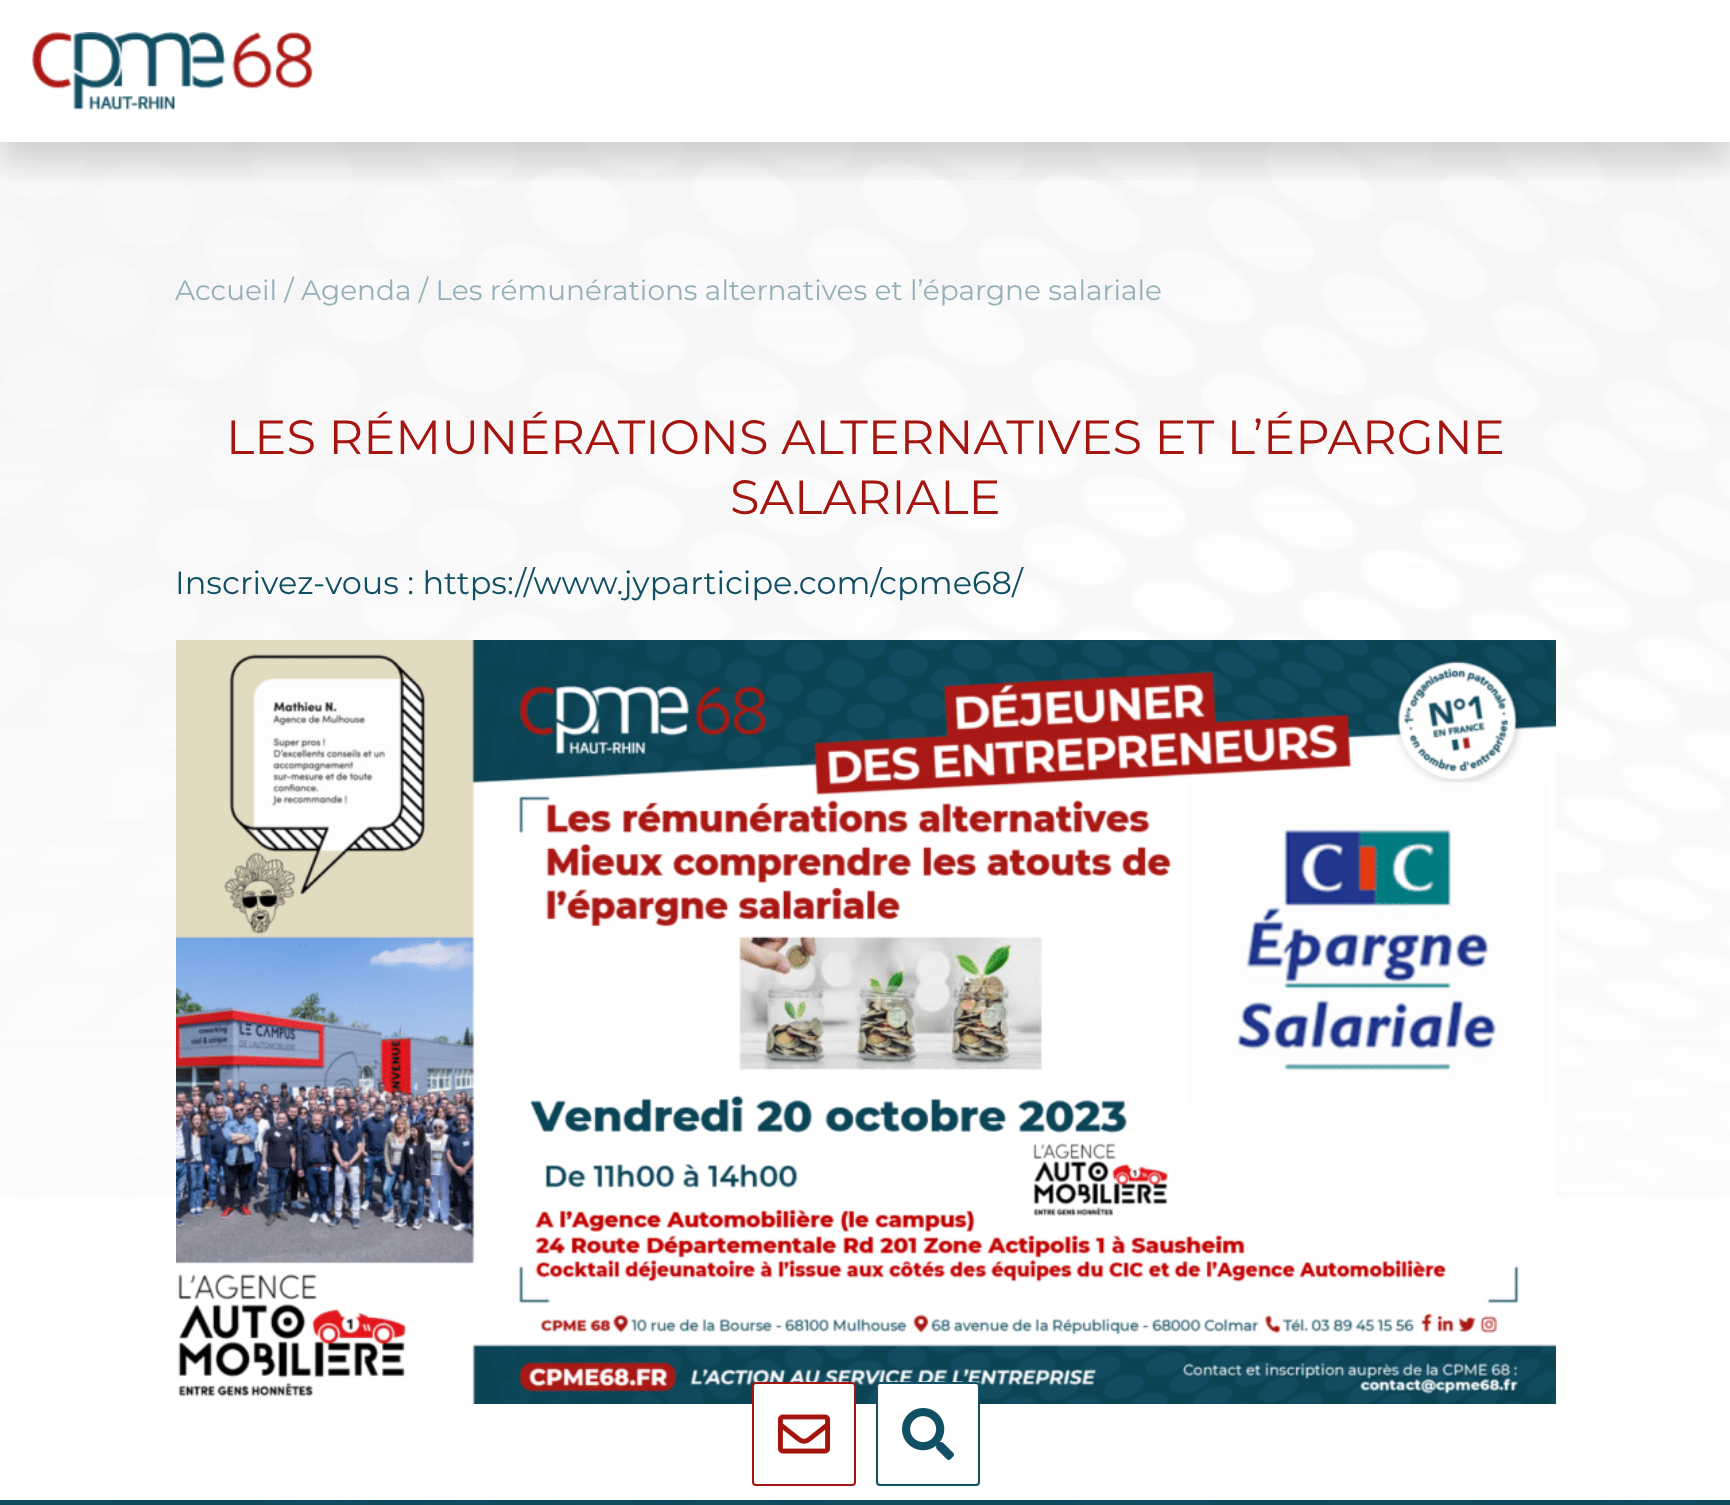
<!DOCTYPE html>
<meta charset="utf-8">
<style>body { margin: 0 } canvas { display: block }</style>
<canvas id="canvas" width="1730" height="1505"></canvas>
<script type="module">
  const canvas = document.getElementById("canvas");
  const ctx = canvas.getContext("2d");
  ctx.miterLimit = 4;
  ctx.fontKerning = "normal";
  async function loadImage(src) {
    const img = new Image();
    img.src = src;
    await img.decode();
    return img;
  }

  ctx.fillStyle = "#ffffff";
  ctx.fillRect(0, 0, 1730, 1505);
  ctx.drawImage(await loadImage("img4.png"), 0, 142, 1730, 1055);
  ctx.save();
  ctx.beginPath();
  ctx.rect(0, 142, 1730, 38);
  ctx.clip();
  ctx.fillStyle = "rgba(0, 0, 0, 0.16)";
  ctx.filter = "blur(16px)";
  ctx.beginPath();
  ctx.rect(0, 20, 1730, 142);
  ctx.fill();
  ctx.filter = "none";
  ctx.restore();
  ctx.drawImage(await loadImage("img1.png"), 32, 32, 281, 78);
  ctx.drawImage(await loadImage("img5.png"), 176, 640, 1380, 764);
  ctx.beginPath();
  ctx.roundRect(753, 1383, 102, 102, 3);
  ctx.fill();
  ctx.strokeStyle = "#a4150f";
  ctx.lineWidth = 2;
  ctx.stroke();
  ctx.drawImage(await loadImage("img2.png"), 778, 1414, 52, 40);
  ctx.beginPath();
  ctx.roundRect(877, 1383, 102, 102, 3);
  ctx.fill();
  ctx.strokeStyle = "#114f64";
  ctx.stroke();
  ctx.drawImage(await loadImage("img3.png"), 902, 1408, 52, 52);
  ctx.font = "28px Montserrat";
  ctx.fillStyle = "#94b0b9";
  ctx.fillText("Accueil / Agenda / Les rémunérations alternatives et l’épargne salariale", 175, 300);
  ctx.font = "48px Montserrat";
  ctx.fillStyle = "#a4150f";
  ctx.fillText("LES RÉMUNÉRATIONS ALTERNATIVES ET L’ÉPARGNE", 226, 454);
  ctx.fillText("SALARIALE", 730, 514);
  ctx.font = "32px Montserrat";
  ctx.fillStyle = "#114f64";
  ctx.fillText("Inscrivez-vous : https://www.jyparticipe.com/cpme68/", 175, 594);
  ctx.drawImage(await loadImage("img6.png"), 0, 1500, 1730, 5);
</script>
